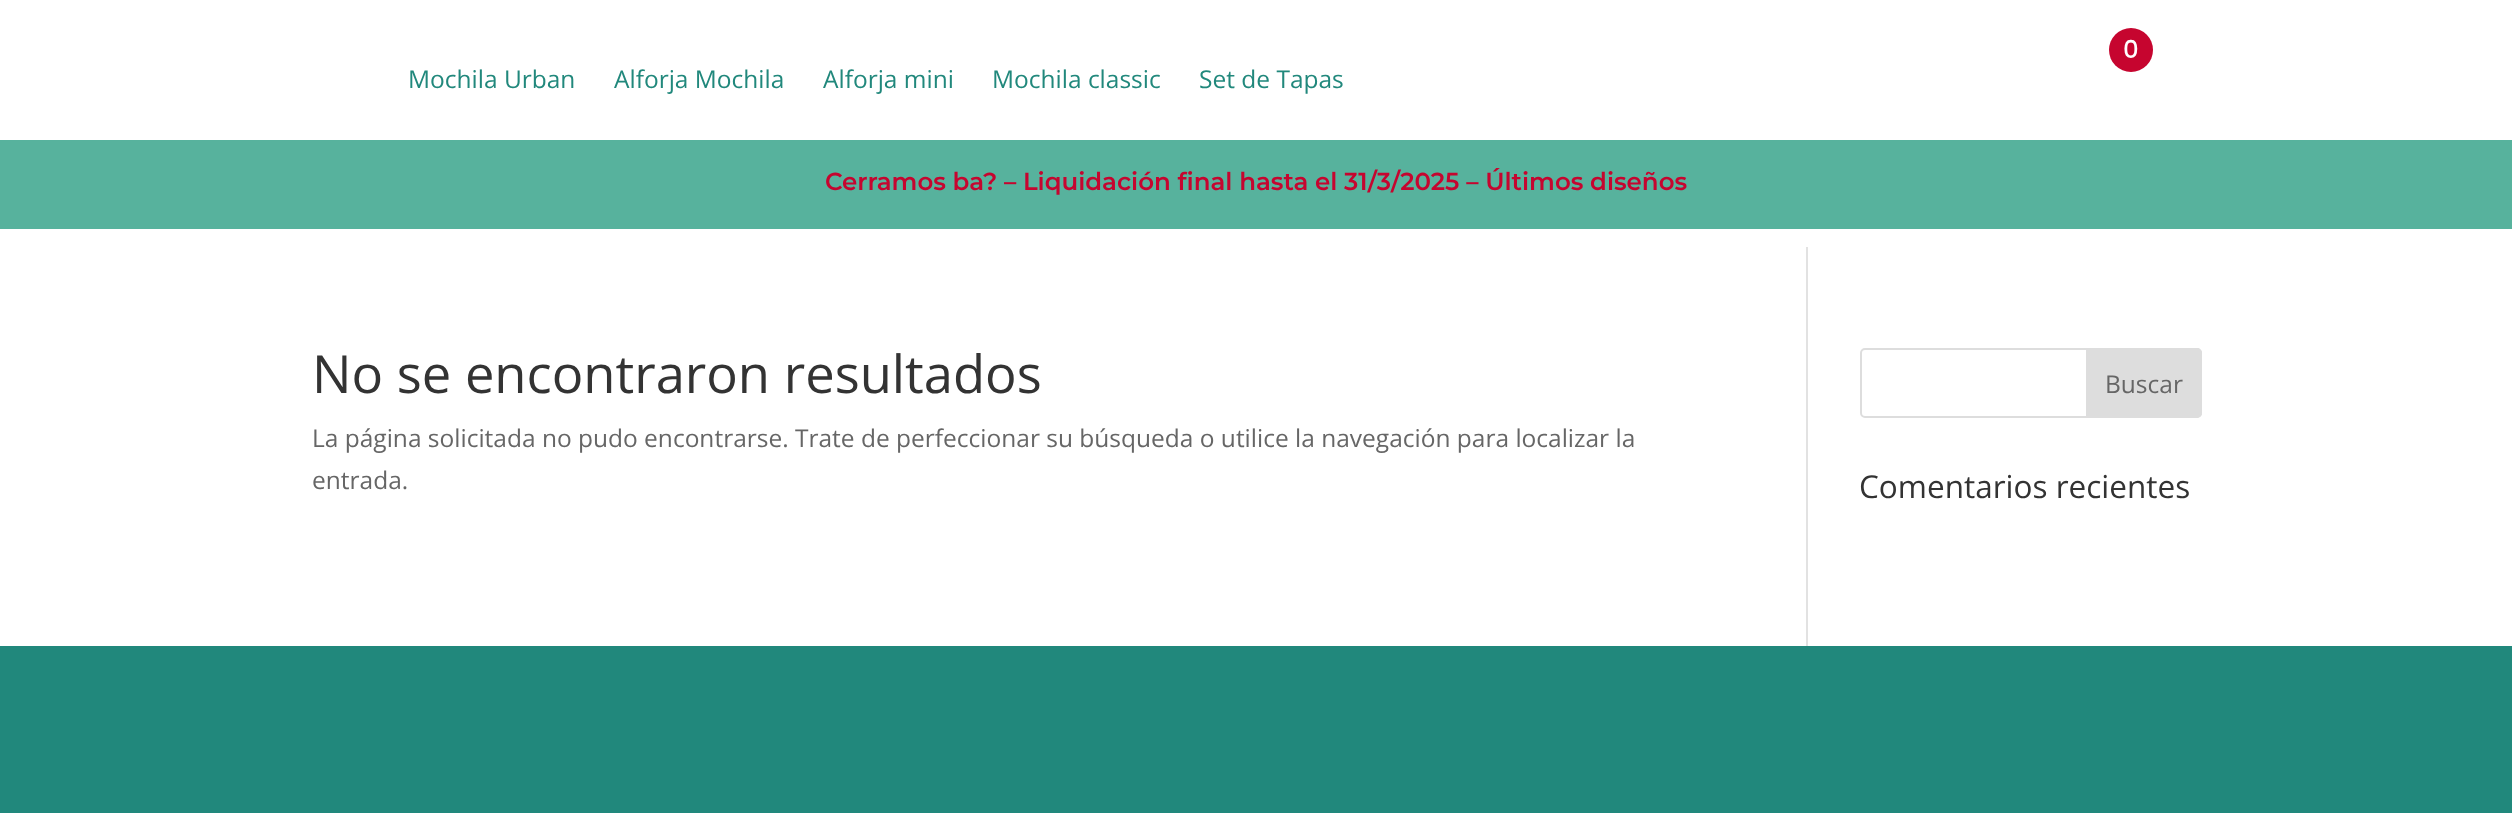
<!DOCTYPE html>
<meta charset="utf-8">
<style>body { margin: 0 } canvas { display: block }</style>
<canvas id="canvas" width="2512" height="813"></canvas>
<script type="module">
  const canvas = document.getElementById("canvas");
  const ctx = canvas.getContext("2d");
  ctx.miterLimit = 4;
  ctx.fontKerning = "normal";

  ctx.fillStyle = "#ffffff";
  ctx.fillRect(0, 0, 2512, 813);
  ctx.fillStyle = "#c6052f";
  ctx.beginPath();
  ctx.arc(2131, 50, 22, 0, Math.PI * 2);
  ctx.fill();
  ctx.font = "500 24.5px Poppins";
  ctx.fillStyle = "#ffffff";
  ctx.fillText("0", 2123, 58);
  ctx.font = "24.5px Open Sans";
  ctx.fillStyle = "#21887c";
  ctx.fillText("Mochila Urban", 408, 88);
  ctx.fillText("Alforja Mochila", 614, 88);
  ctx.fillText("Alforja mini", 823, 88);
  ctx.fillText("Mochila classic", 992, 88);
  ctx.fillText("Set de Tapas", 1199, 88);
  ctx.fillStyle = "#57b29d";
  ctx.fillRect(0, 140, 2512, 89);
  ctx.font = "600 24.5px Montserrat";
  ctx.fillStyle = "#c6052f";
  ctx.fillText("Cerramos ba? – Liquidación final hasta el 31/3/2025 – Últimos diseños", 825, 190);
  ctx.fillStyle = "#e2e2e2";
  ctx.fillRect(1806, 247, 2, 399);
  ctx.font = "52.5px Open Sans";
  ctx.fillStyle = "#333333";
  ctx.fillText("No se encontraron resultados", 312, 393);
  ctx.font = "24.5px Open Sans";
  ctx.fillStyle = "#666666";
  ctx.fillText("La página solicitada no pudo encontrarse. Trate de perfeccionar su búsqueda o utilice la navegación para localizar la", 312, 447);
  ctx.fillText("entrada.", 312, 489);
  ctx.beginPath();
  ctx.roundRect(1861, 349, 340, 68, 4);
  ctx.strokeStyle = "#dddddd";
  ctx.lineWidth = 2;
  ctx.stroke();
  ctx.fillStyle = "#dddddd";
  ctx.beginPath();
  ctx.roundRect(2087, 349, 114, 68, [0, 4, 4, 0]);
  ctx.fill();
  ctx.stroke();
  ctx.fillStyle = "#666666";
  ctx.fillText("Buscar", 2105, 393);
  ctx.font = "31.5px Open Sans";
  ctx.fillStyle = "#333333";
  ctx.fillText("Comentarios recientes", 1859, 498);
  ctx.fillStyle = "#21887c";
  ctx.fillRect(0, 646, 2512, 167);
</script>
